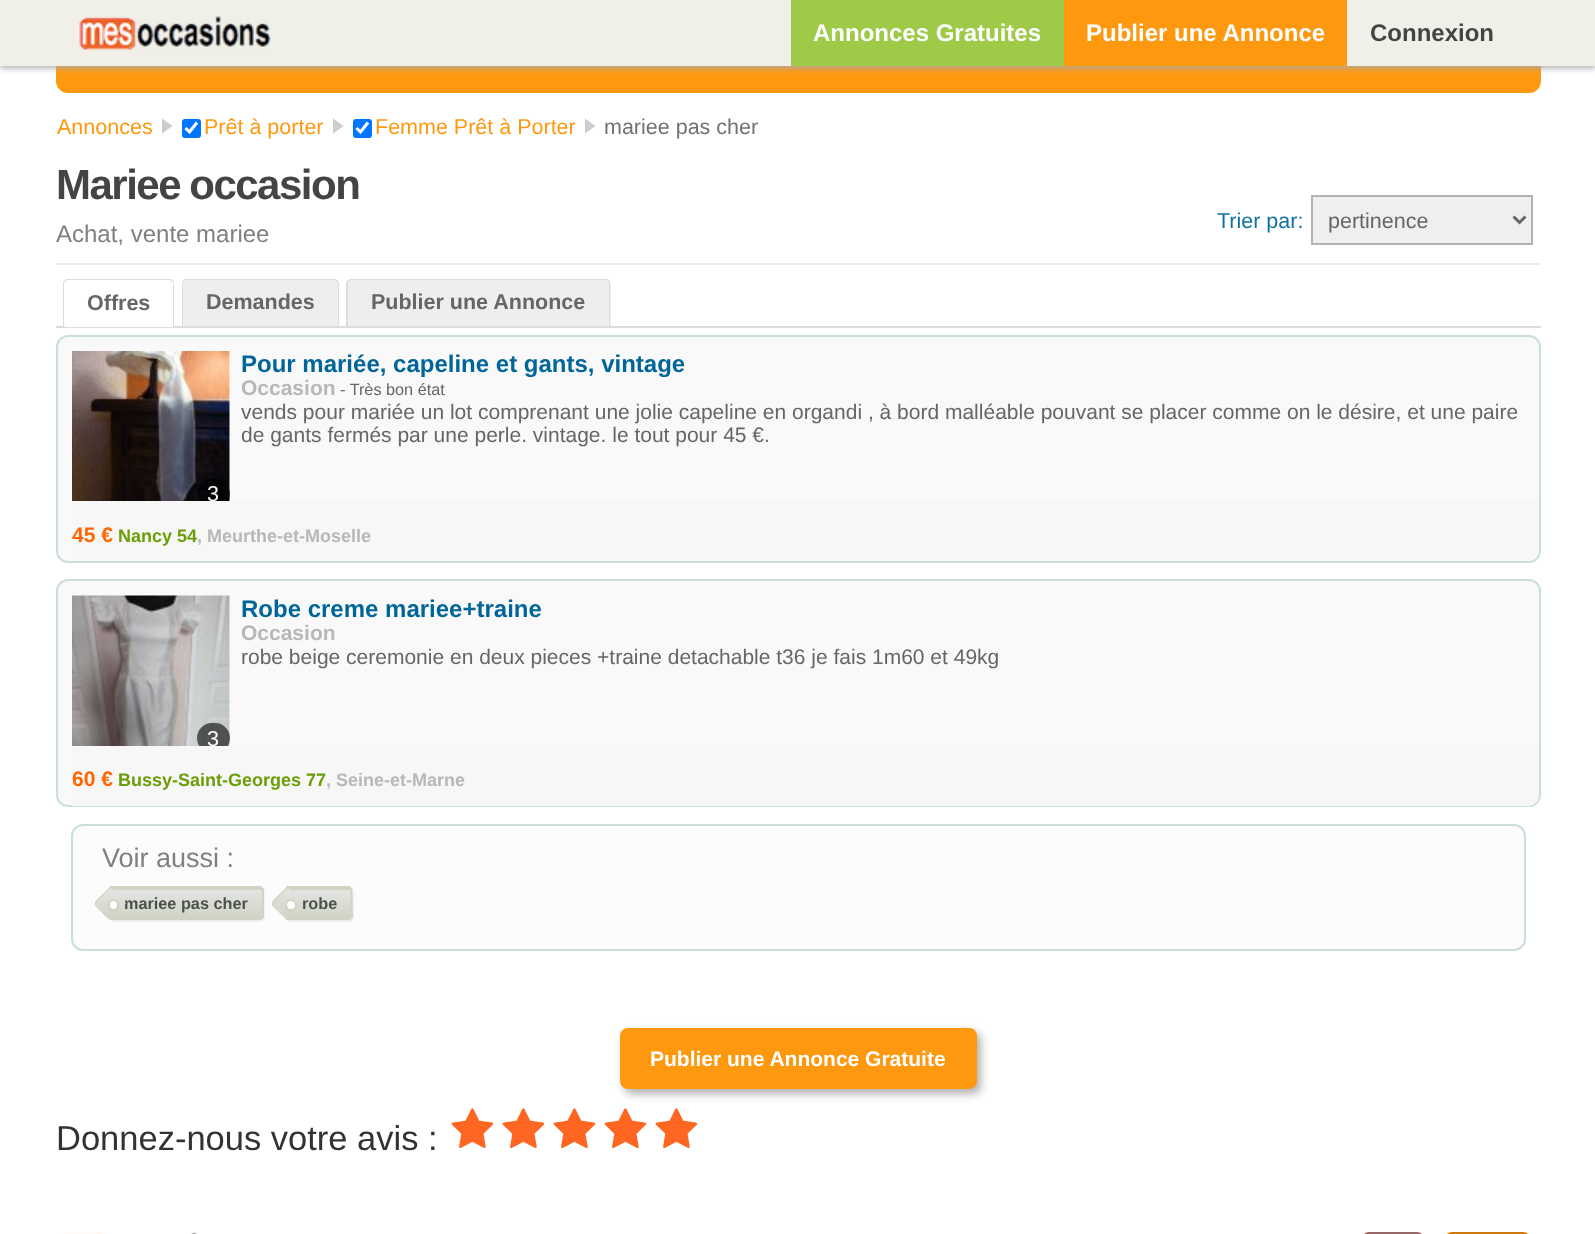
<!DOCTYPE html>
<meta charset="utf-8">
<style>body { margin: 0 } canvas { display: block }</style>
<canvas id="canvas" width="1595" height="1234"></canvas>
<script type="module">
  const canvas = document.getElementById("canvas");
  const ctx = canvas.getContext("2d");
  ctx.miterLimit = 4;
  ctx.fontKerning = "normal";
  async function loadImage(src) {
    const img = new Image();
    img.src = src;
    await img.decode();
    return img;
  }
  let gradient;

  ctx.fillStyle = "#ffffff";
  ctx.fillRect(0, 0, 1595, 1234);
  ctx.fillStyle = "#fe980f";
  ctx.beginPath();
  ctx.roundRect(56, -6, 1485, 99, 12);
  ctx.fill();
  ctx.fillStyle = "#aaaaaa";
  ctx.filter = "blur(3px)";
  ctx.beginPath();
  ctx.rect(0, 2, 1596, 66);
  ctx.fill();
  ctx.filter = "none";
  ctx.fillStyle = "#f0f0e9";
  ctx.fillRect(0, 0, 1595, 66);
  ctx.drawImage(await loadImage("img1.png"), 79, 16, 192, 34);
  ctx.fillStyle = "#9eca47";
  ctx.fillRect(791, 0, 273, 66);
  ctx.font = "bold 24px Liberation Sans";
  ctx.fillStyle = "#ffffff";
  ctx.fillText("Annonces Gratuites", 813, 41);
  ctx.fillStyle = "#fe980f";
  ctx.fillRect(1064, 0, 283, 66);
  ctx.fillStyle = "#ffffff";
  ctx.fillText("Publier une Annonce", 1086, 41);
  ctx.fillStyle = "#444444";
  ctx.fillText("Connexion", 1370, 41);
  ctx.font = "21.5px Liberation Sans";
  ctx.fillStyle = "#fe980f";
  ctx.fillText("Annonces", 57, 134);
  ctx.fillStyle = "#cccccc";
  ctx.beginPath();
  ctx.moveTo(162, 133.5);
  ctx.lineTo(162, 118.5);
  ctx.lineTo(172.5, 126);
  ctx.closePath();
  ctx.fill();
  ctx.fillStyle = "#0075ff";
  ctx.beginPath();
  ctx.roundRect(182, 119, 19, 19, 3);
  ctx.fill();
  ctx.beginPath();
  ctx.moveTo(185.5, 128);
  ctx.lineTo(189.5, 132);
  ctx.lineTo(197, 122.5);
  ctx.strokeStyle = "#ffffff";
  ctx.lineWidth = 3.1;
  ctx.stroke();
  ctx.fillStyle = "#fe980f";
  ctx.fillText("Prêt à porter", 204, 134);
  ctx.fillStyle = "#cccccc";
  ctx.beginPath();
  ctx.moveTo(333, 133.5);
  ctx.lineTo(333, 118.5);
  ctx.lineTo(343.5, 126);
  ctx.closePath();
  ctx.fill();
  ctx.fillStyle = "#0075ff";
  ctx.beginPath();
  ctx.roundRect(353, 119, 19, 19, 3);
  ctx.fill();
  ctx.beginPath();
  ctx.moveTo(356.5, 128);
  ctx.lineTo(360.5, 132);
  ctx.lineTo(368, 122.5);
  ctx.stroke();
  ctx.fillStyle = "#fe980f";
  ctx.fillText("Femme Prêt à Porter", 375, 134);
  ctx.fillStyle = "#cccccc";
  ctx.beginPath();
  ctx.moveTo(585, 133.5);
  ctx.lineTo(585, 118.5);
  ctx.lineTo(595.5, 126);
  ctx.closePath();
  ctx.fill();
  ctx.fillStyle = "#727272";
  ctx.fillText("mariee pas cher", 604, 134);
  ctx.fillStyle = "#ebebeb";
  ctx.fillRect(56, 263, 1485, 2);
  ctx.letterSpacing = "-1.5px";
  ctx.wordSpacing = "-1px";
  ctx.font = "bold 42px Liberation Sans";
  ctx.fillStyle = "#444444";
  ctx.fillText("Mariee occasion", 56, 199);
  ctx.letterSpacing = "0px";
  ctx.wordSpacing = "0px";
  ctx.font = "24px Liberation Sans";
  ctx.fillStyle = "#808080";
  ctx.fillText("Achat, vente mariee", 56, 242);
  ctx.font = "21.5px Liberation Sans";
  ctx.fillStyle = "#13719f";
  ctx.fillText("Trier par:", 1217, 228);
  ctx.fillStyle = "#efefef";
  ctx.beginPath();
  ctx.rect(1312, 196, 220, 48);
  ctx.fill();
  ctx.strokeStyle = "#b4b3b1";
  ctx.lineWidth = 2;
  ctx.stroke();
  ctx.beginPath();
  ctx.moveTo(1513.5, 216.5);
  ctx.lineTo(1519.5, 222.5);
  ctx.lineTo(1525.5, 216.5);
  ctx.strokeStyle = "#666666";
  ctx.lineWidth = 3;
  ctx.stroke();
  ctx.fillStyle = "#666666";
  ctx.fillText("pertinence", 1328, 228);
  ctx.fillStyle = "#dcdcdc";
  ctx.fillRect(56, 326, 1485, 2);
  ctx.beginPath();
  ctx.moveTo(68, 279);
  ctx.lineTo(170, 279);
  ctx.bezierCurveTo(172, 279, 174, 281, 174, 284);
  ctx.lineTo(174, 326);
  ctx.lineTo(63, 326);
  ctx.lineTo(63, 284);
  ctx.bezierCurveTo(63, 281, 65, 279, 68, 279);
  ctx.closePath();
  ctx.moveTo(68, 280);
  ctx.lineTo(170, 280);
  ctx.bezierCurveTo(171, 280, 172, 282, 172, 284);
  ctx.lineTo(172, 326);
  ctx.lineTo(64, 326);
  ctx.lineTo(64, 284);
  ctx.bezierCurveTo(64, 282, 66, 280, 68, 280);
  ctx.closePath();
  ctx.fill("evenodd");
  ctx.fillStyle = "#ffffff";
  ctx.fillRect(65, 282, 108, 45);
  ctx.font = "bold 21.5px Liberation Sans";
  ctx.fillStyle = "#666666";
  ctx.fillText("Offres", 87, 310);
  ctx.fillStyle = "#eeeeee";
  ctx.beginPath();
  ctx.roundRect(182, 279, 157, 47, [5, 5, 0, 0]);
  ctx.fill();
  ctx.fillStyle = "#dcdcdc";
  ctx.beginPath();
  ctx.moveTo(186, 279);
  ctx.lineTo(334, 279);
  ctx.bezierCurveTo(337, 279, 339, 281, 339, 284);
  ctx.lineTo(339, 326);
  ctx.lineTo(182, 326);
  ctx.lineTo(182, 284);
  ctx.bezierCurveTo(182, 281, 184, 279, 186, 279);
  ctx.closePath();
  ctx.moveTo(186, 280);
  ctx.lineTo(334, 280);
  ctx.bezierCurveTo(336, 280, 338, 282, 338, 284);
  ctx.lineTo(338, 326);
  ctx.lineTo(183, 326);
  ctx.lineTo(183, 284);
  ctx.bezierCurveTo(183, 282, 184, 280, 186, 280);
  ctx.closePath();
  ctx.fill("evenodd");
  ctx.fillStyle = "#666666";
  ctx.fillText("Demandes", 206, 309);
  ctx.fillStyle = "#eeeeee";
  ctx.beginPath();
  ctx.roundRect(347, 279, 264, 47, [5, 5, 0, 0]);
  ctx.fill();
  ctx.fillStyle = "#dcdcdc";
  ctx.beginPath();
  ctx.moveTo(351, 279);
  ctx.lineTo(606, 279);
  ctx.bezierCurveTo(608, 279, 610, 281, 610, 284);
  ctx.lineTo(610, 326);
  ctx.lineTo(346, 326);
  ctx.lineTo(346, 284);
  ctx.bezierCurveTo(346, 281, 349, 279, 351, 279);
  ctx.closePath();
  ctx.moveTo(351, 280);
  ctx.lineTo(606, 280);
  ctx.bezierCurveTo(608, 280, 609, 282, 609, 284);
  ctx.lineTo(609, 326);
  ctx.lineTo(348, 326);
  ctx.lineTo(348, 284);
  ctx.bezierCurveTo(348, 282, 349, 280, 351, 280);
  ctx.closePath();
  ctx.fill("evenodd");
  ctx.fillStyle = "#666666";
  ctx.fillText("Publier une Annonce", 371, 309);
  ctx.fillStyle = "#f9f9f9";
  ctx.beginPath();
  ctx.roundRect(57, 336, 1483, 226, 11);
  ctx.fill();
  ctx.strokeStyle = "#ccdddd";
  ctx.lineWidth = 2;
  ctx.stroke();
  ctx.font = "bold 24px Liberation Sans";
  ctx.fillStyle = "#006699";
  ctx.fillText("Pour mariée, capeline et gants, vintage", 241, 372);
  ctx.font = "bold 21px Liberation Sans";
  ctx.fillStyle = "#b8b8b8";
  ctx.fillText("Occasion", 241, 395);
  ctx.font = "16.25px Liberation Sans";
  ctx.fillStyle = "#666666";
  ctx.fillText("- Très bon état", 340, 395);
  ctx.font = "21px Liberation Sans";
  ctx.fillText("vends pour mariée un lot comprenant une jolie capeline en organdi , à bord malléable pouvant se placer comme on le désire, et une paire", 241, 419);
  ctx.fillText("de gants fermés par une perle. vintage. le tout pour 45 €.", 241, 442);
  ctx.fillStyle = "#ffffff";
  ctx.fillRect(229, 351, 1, 150);
  ctx.drawImage(await loadImage("img2.png"), 72, 351, 158, 150);
  ctx.fillStyle = "rgba(0, 0, 0, 0.6)";
  ctx.beginPath();
  ctx.roundRect(197, 479, 33, 30, 15);
  ctx.fill();
  ctx.font = "21.5px Liberation Sans";
  ctx.fillStyle = "#ffffff";
  ctx.fillText("3", 207, 501);
  ctx.fillStyle = "#f7f7f7";
  ctx.beginPath();
  ctx.roundRect(72, 501, 1467, 60, [0, 0, 11, 0]);
  ctx.fill();
  ctx.font = "bold 21px Liberation Sans";
  ctx.fillStyle = "#ff6600";
  ctx.fillText("45 €", 72, 542);
  ctx.font = "bold 18px Liberation Sans";
  ctx.fillStyle = "#6b9e06";
  ctx.fillText("Nancy 54", 118, 542);
  ctx.fillStyle = "#b8b8b8";
  ctx.fillText(", Meurthe-et-Moselle", 197, 542);
  ctx.fillStyle = "#f9f9f9";
  ctx.beginPath();
  ctx.roundRect(57, 580, 1483, 226, 11);
  ctx.fill();
  ctx.stroke();
  ctx.font = "bold 24px Liberation Sans";
  ctx.fillStyle = "#006699";
  ctx.fillText("Robe creme mariee+traine", 241, 617);
  ctx.font = "bold 21px Liberation Sans";
  ctx.fillStyle = "#b8b8b8";
  ctx.fillText("Occasion", 241, 640);
  ctx.font = "21px Liberation Sans";
  ctx.fillStyle = "#666666";
  ctx.fillText("robe beige ceremonie en deux pieces +traine detachable t36 je fais 1m60 et 49kg", 241, 664);
  ctx.fillStyle = "#ffffff";
  ctx.fillRect(229, 596, 1, 150);
  ctx.drawImage(await loadImage("img3.png"), 72, 595, 158, 151);
  ctx.fillStyle = "rgba(0, 0, 0, 0.6)";
  ctx.beginPath();
  ctx.roundRect(197, 723, 33, 30, 15);
  ctx.fill();
  ctx.font = "21.5px Liberation Sans";
  ctx.fillStyle = "#ffffff";
  ctx.fillText("3", 207, 746);
  ctx.fillStyle = "#f7f7f7";
  ctx.beginPath();
  ctx.roundRect(72, 746, 1467, 60, [0, 0, 11, 0]);
  ctx.fill();
  ctx.font = "bold 21px Liberation Sans";
  ctx.fillStyle = "#ff6600";
  ctx.fillText("60 €", 72, 786);
  ctx.font = "bold 18px Liberation Sans";
  ctx.fillStyle = "#6b9e06";
  ctx.fillText("Bussy-Saint-Georges 77", 118, 786);
  ctx.fillStyle = "#b8b8b8";
  ctx.fillText(", Seine-et-Marne", 326, 786);
  ctx.fillStyle = "#fcfcfc";
  ctx.beginPath();
  ctx.roundRect(72, 825, 1453, 125, 11);
  ctx.fill();
  ctx.stroke();
  ctx.font = "27px Liberation Sans";
  ctx.fillStyle = "#808080";
  ctx.fillText("Voir aussi :", 102, 867);
  ctx.fillStyle = "rgba(0, 0, 0, 0.1)";
  ctx.filter = "blur(1px)";
  ctx.beginPath();
  ctx.roundRect(110, 888, 154, 33, 4);
  ctx.fill();
  ctx.filter = "none";
  ctx.save();
  ctx.beginPath();
  ctx.roundRect(110, 887, 154, 33, [0, 4, 4, 0]);
  ctx.clip();
  gradient = ctx.createLinearGradient(186, 888, 186, 918);
  gradient.addColorStop(0, "#e5e5e4");
  gradient.addColorStop(1, "#d0d4c4");
  ctx.fillStyle = gradient;
  ctx.fillRect(110, 888, 154, 30);
  ctx.restore();
  ctx.fillStyle = "#d0d4c4";
  ctx.beginPath();
  ctx.moveTo(110, 890);
  ctx.lineTo(260, 890);
  ctx.bezierCurveTo(264, 890, 262, 899, 262, 900);
  ctx.lineTo(262, 918);
  ctx.bezierCurveTo(263, 917, 263, 917, 263, 916);
  ctx.lineTo(263, 890);
  ctx.bezierCurveTo(263, 889, 262, 888, 261, 888);
  ctx.lineTo(110, 888);
  ctx.closePath();
  ctx.fill();
  ctx.beginPath();
  ctx.moveTo(110, 886);
  ctx.lineTo(260, 886);
  ctx.bezierCurveTo(262, 886, 264, 888, 264, 891);
  ctx.lineTo(264, 915);
  ctx.bezierCurveTo(264, 918, 262, 920, 260, 920);
  ctx.lineTo(110, 920);
  ctx.closePath();
  ctx.moveTo(110, 888);
  ctx.lineTo(260, 888);
  ctx.bezierCurveTo(261, 888, 262, 889, 262, 891);
  ctx.lineTo(262, 915);
  ctx.bezierCurveTo(262, 917, 261, 918, 260, 918);
  ctx.lineTo(110, 918);
  ctx.closePath();
  ctx.fill("evenodd");
  ctx.font = "bold 16.25px Liberation Sans";
  ctx.fillStyle = "#495249";
  ctx.fillText("mariee pas cher", 124, 909);
  gradient = ctx.createLinearGradient(110, 888, 111, 918);
  gradient.addColorStop(0, "#e5e5e4");
  gradient.addColorStop(1, "#d0d4c4");
  ctx.fillStyle = gradient;
  ctx.beginPath();
  ctx.moveTo(111, 888);
  ctx.lineTo(126, 903);
  ctx.lineTo(110, 918.5);
  ctx.lineTo(95.5, 903.5);
  ctx.closePath();
  ctx.fill();
  gradient = ctx.createLinearGradient(95, 904, 95, 934);
  gradient.addColorStop(0, "#e5e5e4");
  gradient.addColorStop(1, "#d0d4c4");
  ctx.fillStyle = gradient;
  ctx.beginPath();
  ctx.moveTo(95.5, 903.5);
  ctx.lineTo(110, 918.5);
  ctx.lineTo(109, 919.5);
  ctx.lineTo(96, 906.5);
  ctx.bezierCurveTo(95.5, 906, 95, 905, 95, 904);
  ctx.closePath();
  ctx.fill();
  ctx.fillStyle = "#d0d4c4";
  ctx.beginPath();
  ctx.moveTo(110, 887);
  ctx.lineTo(126, 903);
  ctx.lineTo(109, 919.5);
  ctx.lineTo(96, 906.5);
  ctx.bezierCurveTo(94.5, 905, 94.5, 902.5, 96, 900.5);
  ctx.closePath();
  ctx.moveTo(111, 888);
  ctx.lineTo(126, 903);
  ctx.lineTo(110, 918.5);
  ctx.lineTo(97, 905.5);
  ctx.bezierCurveTo(96, 904.5, 96, 903, 97, 902);
  ctx.closePath();
  ctx.fill("evenodd");
  ctx.beginPath();
  ctx.moveTo(108, 905.5);
  ctx.bezierCurveTo(108, 914, 118.5, 914, 119, 906.5);
  ctx.bezierCurveTo(119, 905.5, 119, 904, 118.5, 903);
  ctx.bezierCurveTo(119.5, 912.5, 108, 912.5, 108, 905.5);
  ctx.closePath();
  ctx.fill();
  ctx.fillStyle = "#ffffff";
  ctx.beginPath();
  ctx.roundRect(109, 900, 9, 10, 4.5);
  ctx.fill();
  ctx.strokeStyle = "#d0d4c4";
  ctx.stroke();
  ctx.fillStyle = "rgba(0, 0, 0, 0.1)";
  ctx.filter = "blur(1px)";
  ctx.beginPath();
  ctx.roundRect(287, 888, 66, 33, 4);
  ctx.fill();
  ctx.filter = "none";
  ctx.save();
  ctx.beginPath();
  ctx.roundRect(287, 887, 66, 33, [0, 4, 4, 0]);
  ctx.clip();
  gradient = ctx.createLinearGradient(319, 888, 319, 918);
  gradient.addColorStop(0, "#e5e5e4");
  gradient.addColorStop(1, "#d0d4c4");
  ctx.fillStyle = gradient;
  ctx.fillRect(288, 888, 65, 30);
  gradient = ctx.createLinearGradient(319, 918, 319, 948);
  gradient.addColorStop(0, "#e5e5e4");
  gradient.addColorStop(1, "#d0d4c4");
  ctx.fillStyle = gradient;
  ctx.fillRect(348, 918, 5, 2);
  ctx.restore();
  ctx.fillStyle = "#d0d4c4";
  ctx.beginPath();
  ctx.moveTo(287, 888);
  ctx.lineTo(287, 890);
  ctx.lineTo(350, 890);
  ctx.lineTo(351, 892);
  ctx.bezierCurveTo(351, 890, 351, 888, 349, 888);
  ctx.closePath();
  ctx.fill();
  ctx.beginPath();
  ctx.moveTo(286, 886);
  ctx.lineTo(348, 886);
  ctx.bezierCurveTo(351, 886, 352, 888, 352, 891);
  ctx.lineTo(352, 915);
  ctx.bezierCurveTo(352, 918, 351, 920, 348, 920);
  ctx.lineTo(286, 920);
  ctx.closePath();
  ctx.moveTo(286, 888);
  ctx.lineTo(348, 888);
  ctx.bezierCurveTo(350, 888, 351, 889, 351, 891);
  ctx.lineTo(351, 915);
  ctx.bezierCurveTo(351, 917, 350, 918, 348, 918);
  ctx.lineTo(286, 918);
  ctx.closePath();
  ctx.fill("evenodd");
  ctx.fillStyle = "#495249";
  ctx.fillText("robe", 302, 909);
  gradient = ctx.createLinearGradient(287, 888, 288, 918);
  gradient.addColorStop(0, "#e5e5e4");
  gradient.addColorStop(1, "#d0d4c4");
  ctx.fillStyle = gradient;
  ctx.beginPath();
  ctx.moveTo(288, 888);
  ctx.lineTo(303, 903);
  ctx.lineTo(287.5, 918.5);
  ctx.lineTo(272.5, 903.5);
  ctx.closePath();
  ctx.fill();
  ctx.fillStyle = "#d0d4c4";
  ctx.beginPath();
  ctx.moveTo(287, 887);
  ctx.lineTo(303, 903);
  ctx.lineTo(286.5, 919.5);
  ctx.lineTo(273, 906.5);
  ctx.bezierCurveTo(271.5, 905, 271.5, 902.5, 273, 900.5);
  ctx.closePath();
  ctx.moveTo(288, 888);
  ctx.lineTo(303, 903);
  ctx.lineTo(287.5, 918.5);
  ctx.lineTo(274.5, 905.5);
  ctx.bezierCurveTo(273.5, 904.5, 273.5, 903, 274.5, 902);
  ctx.closePath();
  ctx.fill("evenodd");
  ctx.beginPath();
  ctx.moveTo(285, 905);
  ctx.bezierCurveTo(284, 914, 298, 914, 297, 905);
  ctx.bezierCurveTo(296, 912, 286, 912, 285, 905);
  ctx.closePath();
  ctx.fill();
  ctx.fillStyle = "#ffffff";
  ctx.beginPath();
  ctx.arc(291, 905, 5, 0, Math.PI * 2);
  ctx.fill();
  ctx.stroke();
  ctx.fillStyle = "rgba(0, 0, 0, 0.3)";
  ctx.filter = "blur(4px)";
  ctx.beginPath();
  ctx.roundRect(624, 1032, 357, 62, 8);
  ctx.fill();
  ctx.filter = "none";
  ctx.fillStyle = "#fe980f";
  ctx.beginPath();
  ctx.roundRect(620, 1028, 357, 61, 8);
  ctx.fill();
  ctx.font = "bold 21px Liberation Sans";
  ctx.fillStyle = "#ffffff";
  ctx.fillText("Publier une Annonce Gratuite", 650, 1066);
  ctx.font = "34.5px Liberation Sans";
  ctx.fillStyle = "#333333";
  ctx.fillText("Donnez-nous votre avis :", 56, 1150);
  ctx.drawImage(await loadImage("img4.png"), 451, 1108, 43, 41);
  ctx.drawImage(await loadImage("img4.png"), 502, 1108, 43, 41);
  ctx.drawImage(await loadImage("img4.png"), 553, 1108, 43, 41);
  ctx.drawImage(await loadImage("img4.png"), 604, 1108, 43, 41);
  ctx.drawImage(await loadImage("img4.png"), 655, 1108, 43, 41);
  ctx.drawImage(await loadImage("img5.png"), 63, 1232, 134, 2);
  ctx.fillStyle = "#be8383";
  ctx.beginPath();
  ctx.roundRect(1362, 1232, 62, 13, 11);
  ctx.fill();
  ctx.beginPath();
  ctx.roundRect(1363, 1233, 60, 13, 10);
  ctx.strokeStyle = "rgba(0, 0, 0, 0.2)";
  ctx.stroke();
  ctx.fillStyle = "#fe980f";
  ctx.beginPath();
  ctx.roundRect(1445, 1232, 85, 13, 11);
  ctx.fill();
  ctx.beginPath();
  ctx.roundRect(1446, 1233, 83, 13, 10);
  ctx.stroke();
</script>
